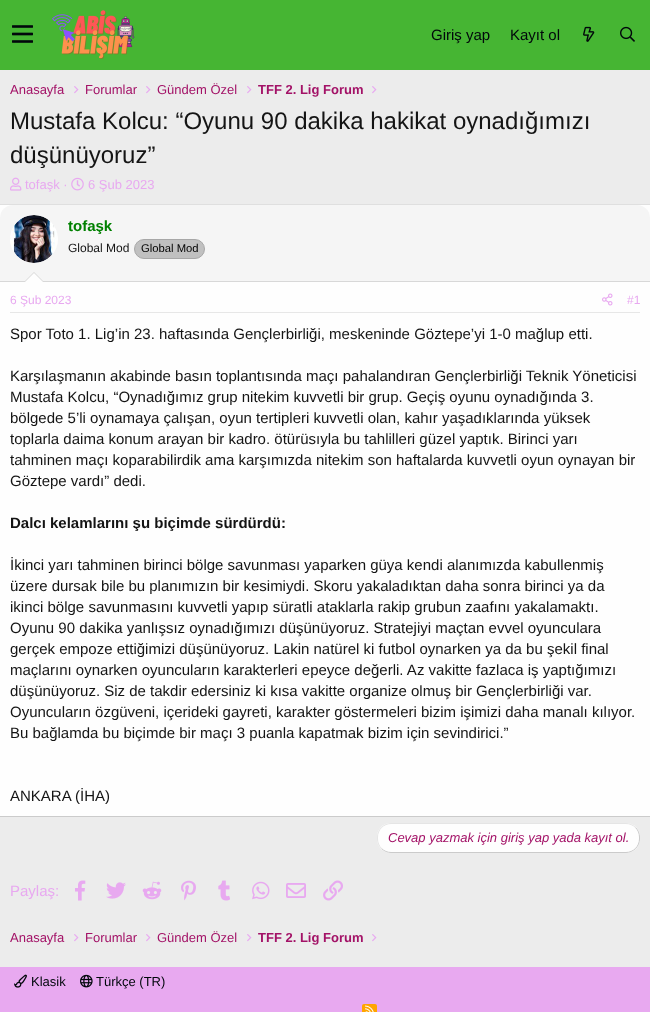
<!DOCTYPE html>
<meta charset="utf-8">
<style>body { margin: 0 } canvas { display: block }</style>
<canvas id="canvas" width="650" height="1012"></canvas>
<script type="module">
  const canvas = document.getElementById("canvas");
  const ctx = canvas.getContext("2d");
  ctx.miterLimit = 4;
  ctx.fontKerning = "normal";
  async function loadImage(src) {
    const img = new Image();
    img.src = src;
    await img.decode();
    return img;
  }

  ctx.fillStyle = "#ececec";
  ctx.fillRect(0, 0, 650, 1012);
  ctx.fillStyle = "#46b533";
  ctx.fillRect(0, 0, 650, 70);
  ctx.drawImage(await loadImage("img1.png"), 12, 25, 21, 18);
  ctx.drawImage(await loadImage("img2.png"), 52, 10, 83, 49);
  ctx.font = "15px Liberation Sans";
  ctx.fillStyle = "#01070b";
  ctx.fillText("Giriş yap", 431, 40);
  ctx.fillText("Kayıt ol", 510, 40);
  ctx.drawImage(await loadImage("img3.png"), 583, 26, 12, 16);
  ctx.drawImage(await loadImage("img4.png"), 620, 26, 15, 16);
  ctx.font = "13px Liberation Sans";
  ctx.fillStyle = "#a31267";
  ctx.fillText("Anasayfa", 10, 94);
  ctx.drawImage(await loadImage("img5.png"), 74, 86, 5, 8);
  ctx.fillText("Forumlar", 85, 94);
  ctx.drawImage(await loadImage("img5.png"), 146, 86, 5, 8);
  ctx.fillText("Gündem Özel", 157, 94);
  ctx.drawImage(await loadImage("img5.png"), 247, 86, 5, 8);
  ctx.font = "bold 13px Liberation Sans";
  ctx.fillText("TFF 2. Lig Forum", 258, 94);
  ctx.drawImage(await loadImage("img5.png"), 372, 86, 5, 8);
  ctx.font = "24px Liberation Sans";
  ctx.fillStyle = "#141414";
  ctx.fillText("Mustafa Kolcu: “Oyunu 90 dakika hakikat oynadığımızı", 10, 129);
  ctx.fillText("düşünüyoruz”", 10, 163);
  ctx.drawImage(await loadImage("img6.png"), 10, 177, 12, 14);
  ctx.font = "13px Liberation Sans";
  ctx.fillStyle = "#e8a9f0";
  ctx.fillText("tofaşk ·", 25, 189);
  ctx.drawImage(await loadImage("img7.png"), 71, 177, 13, 14);
  ctx.fillText("6 Şub 2023", 88, 189);
  ctx.fillStyle = "#fefefe";
  ctx.fillRect(0, 205, 650, 611);
  ctx.fillStyle = "#dfdfdf";
  ctx.fillRect(0, 204, 650, 1);
  ctx.fillStyle = "#cbcbcb";
  ctx.fillRect(0, 816, 650, 1);
  ctx.fillStyle = "#f5f5f5";
  ctx.beginPath();
  ctx.roundRect(0, 205, 650, 77, [13, 13, 0, 0]);
  ctx.fill();
  ctx.fillStyle = "#d8d8d8";
  ctx.fillRect(0, 281, 650, 1);
  ctx.fillStyle = "#fefefe";
  ctx.beginPath();
  ctx.arc(34, 239, 24, 0, Math.PI * 2);
  ctx.fill();
  ctx.drawImage(await loadImage("img8.png"), 10, 215, 46, 48);
  ctx.font = "bold 15px Liberation Sans";
  ctx.fillStyle = "#008000";
  ctx.fillText("tofaşk", 68, 231);
  ctx.font = "12px Liberation Sans";
  ctx.fillStyle = "#141414";
  ctx.fillText("Global Mod", 68, 252);
  ctx.fillStyle = "#c0c0c0";
  ctx.beginPath();
  ctx.roundRect(134.5, 239.5, 70, 19, 9.5);
  ctx.fill();
  ctx.strokeStyle = "#a7a7a7";
  ctx.stroke();
  ctx.font = "11.25px Liberation Sans";
  ctx.fillStyle = "#000000";
  ctx.fillText("Global Mod", 141, 252);
  ctx.fillStyle = "#d8d8d8";
  ctx.beginPath();
  ctx.moveTo(44, 282);
  ctx.lineTo(24, 282);
  ctx.lineTo(34, 272);
  ctx.closePath();
  ctx.fill();
  ctx.fillStyle = "#fefefe";
  ctx.beginPath();
  ctx.moveTo(43, 282);
  ctx.lineTo(25, 282);
  ctx.lineTo(34, 273);
  ctx.closePath();
  ctx.fill();
  ctx.fillStyle = "#e7e7e7";
  ctx.fillRect(10, 312, 630, 1);
  ctx.font = "12px Liberation Sans";
  ctx.fillStyle = "#e8a9f0";
  ctx.fillText("6 Şub 2023", 10, 304);
  ctx.drawImage(await loadImage("img9.png"), 602, 293, 11, 13);
  ctx.fillText("#1", 627, 304);
  ctx.font = "15px Liberation Sans";
  ctx.fillStyle = "#141414";
  ctx.fillText("Spor Toto 1. Lig’in 23. haftasında Gençlerbirliği, meskeninde Göztepe’yi 1-0 mağlup etti.", 10, 339);
  ctx.fillText("Karşılaşmanın akabinde basın toplantısında maçı pahalandıran Gençlerbirliği Teknik Yöneticisi", 10, 381);
  ctx.fillText("Mustafa Kolcu, “Oynadığımız grup nitekim kuvvetli bir grup. Geçiş oyunu oynadığında 3.", 10, 402);
  ctx.fillText("bölgede 5’li oynamaya çalışan, oyun tertipleri kuvvetli olan, kahır yaşadıklarında yüksek", 10, 423);
  ctx.fillText("toplarla daima konum arayan bir kadro. ötürüsıyla bu tahlilleri güzel yaptık. Birinci yarı", 10, 444);
  ctx.fillText("tahminen maçı koparabilirdik ama karşımızda nitekim son haftalarda kuvvetli oyun oynayan bir", 10, 465);
  ctx.fillText("Göztepe vardı” dedi.", 10, 486);
  ctx.font = "bold 15px Liberation Sans";
  ctx.fillText("Dalcı kelamlarını şu biçimde sürdürdü:", 10, 528);
  ctx.font = "15px Liberation Sans";
  ctx.fillText("İkinci yarı tahminen birinci bölge savunması yaparken güya kendi alanımızda kabullenmiş", 10, 570);
  ctx.fillText("üzere dursak bile bu planımızın bir kesimiydi. Skoru yakaladıktan daha sonra birinci ya da", 10, 591);
  ctx.fillText("ikinci bölge savunmasını kuvvetli yapıp süratli ataklarla rakip grubun zaafını yakalamaktı.", 10, 612);
  ctx.fillText("Oyunu 90 dakika yanlışsız oynadığımızı düşünüyoruz. Stratejiyi maçtan evvel oyunculara", 10, 633);
  ctx.fillText("gerçek empoze ettiğimizi düşünüyoruz. Lakin natürel ki futbol oynarken ya da bu şekil final", 10, 654);
  ctx.fillText("maçlarını oynarken oyuncuların karakterleri epeyce değerli. Az vakitte fazlaca iş yaptığımızı", 10, 675);
  ctx.fillText("düşünüyoruz. Siz de takdir edersiniz ki kısa vakitte organize olmuş bir Gençlerbirliği var.", 10, 696);
  ctx.fillText("Oyuncuların özgüveni, içerideki gayreti, karakter göstermeleri bizim işimizi daha manalı kılıyor.", 10, 717);
  ctx.fillText("Bu bağlamda bu biçimde bir maçı 3 puanla kapatmak bizim için sevindirici.”", 10, 738);
  ctx.fillText("ANKARA (İHA)", 10, 801);
  ctx.fillStyle = "#fefefe";
  ctx.beginPath();
  ctx.roundRect(377, 823, 263, 30, 14);
  ctx.fill();
  ctx.beginPath();
  ctx.moveTo(635.5, 827.5);
  ctx.bezierCurveTo(638, 830, 639.5, 833.5, 639.5, 837);
  ctx.lineTo(639.5, 839);
  ctx.bezierCurveTo(639.5, 842.5, 638, 846, 635.5, 848.5);
  ctx.bezierCurveTo(633, 851, 629.5, 852.5, 626, 852.5);
  ctx.lineTo(391, 852.5);
  ctx.bezierCurveTo(387.5, 852.5, 384, 851, 381.5, 848.5);
  ctx.strokeStyle = "#cbcbcb";
  ctx.stroke();
  ctx.beginPath();
  ctx.moveTo(381.5, 848.5);
  ctx.bezierCurveTo(379, 846, 377.5, 842.5, 377.5, 839);
  ctx.lineTo(377.5, 837);
  ctx.bezierCurveTo(377.5, 833.5, 379, 830, 381.5, 827.5);
  ctx.bezierCurveTo(384, 825, 387.5, 823.5, 391, 823.5);
  ctx.lineTo(626, 823.5);
  ctx.bezierCurveTo(629.5, 823.5, 633, 825, 635.5, 827.5);
  ctx.strokeStyle = "#e5e5e5";
  ctx.stroke();
  ctx.font = "italic 13px Liberation Sans";
  ctx.fillStyle = "#a31267";
  ctx.fillText("Cevap yazmak için giriş yap yada kayıt ol.", 388, 842);
  ctx.font = "15px Liberation Sans";
  ctx.fillStyle = "#e8a9f0";
  ctx.fillText("Paylaş:", 10, 896);
  ctx.drawImage(await loadImage("img10.png"), 75, 880, 11, 21);
  ctx.drawImage(await loadImage("img11.png"), 106, 882, 20, 17);
  ctx.drawImage(await loadImage("img12.png"), 142, 881, 20, 19);
  ctx.drawImage(await loadImage("img13.png"), 181, 880, 15, 21);
  ctx.drawImage(await loadImage("img14.png"), 218, 880, 12, 21);
  ctx.drawImage(await loadImage("img15.png"), 252, 881, 18, 19);
  ctx.drawImage(await loadImage("img16.png"), 286, 883, 20, 15);
  ctx.drawImage(await loadImage("img17.png"), 323, 880, 20, 21);
  ctx.font = "13px Liberation Sans";
  ctx.fillStyle = "#a31267";
  ctx.fillText("Anasayfa", 10, 942);
  ctx.drawImage(await loadImage("img5.png"), 74, 934, 5, 8);
  ctx.fillText("Forumlar", 85, 942);
  ctx.drawImage(await loadImage("img5.png"), 146, 934, 5, 8);
  ctx.fillText("Gündem Özel", 157, 942);
  ctx.drawImage(await loadImage("img5.png"), 247, 934, 5, 8);
  ctx.font = "bold 13px Liberation Sans";
  ctx.fillText("TFF 2. Lig Forum", 258, 942);
  ctx.drawImage(await loadImage("img5.png"), 372, 934, 5, 8);
  ctx.fillStyle = "#e8a9f0";
  ctx.fillRect(0, 967, 650, 45);
  ctx.drawImage(await loadImage("img18.png"), 14, 974, 13, 14);
  ctx.font = "13px Liberation Sans";
  ctx.fillStyle = "#01070b";
  ctx.fillText("Klasik", 31, 986);
  ctx.drawImage(await loadImage("img19.png"), 80, 974, 13, 14);
  ctx.fillText("Türkçe (TR)", 96, 986);
  ctx.fillStyle = "#ffa500";
  ctx.beginPath();
  ctx.roundRect(362, 1004, 15, 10, 2);
  ctx.fill();
  ctx.drawImage(await loadImage("img20.png"), 365, 1005, 9, 7);
</script>
